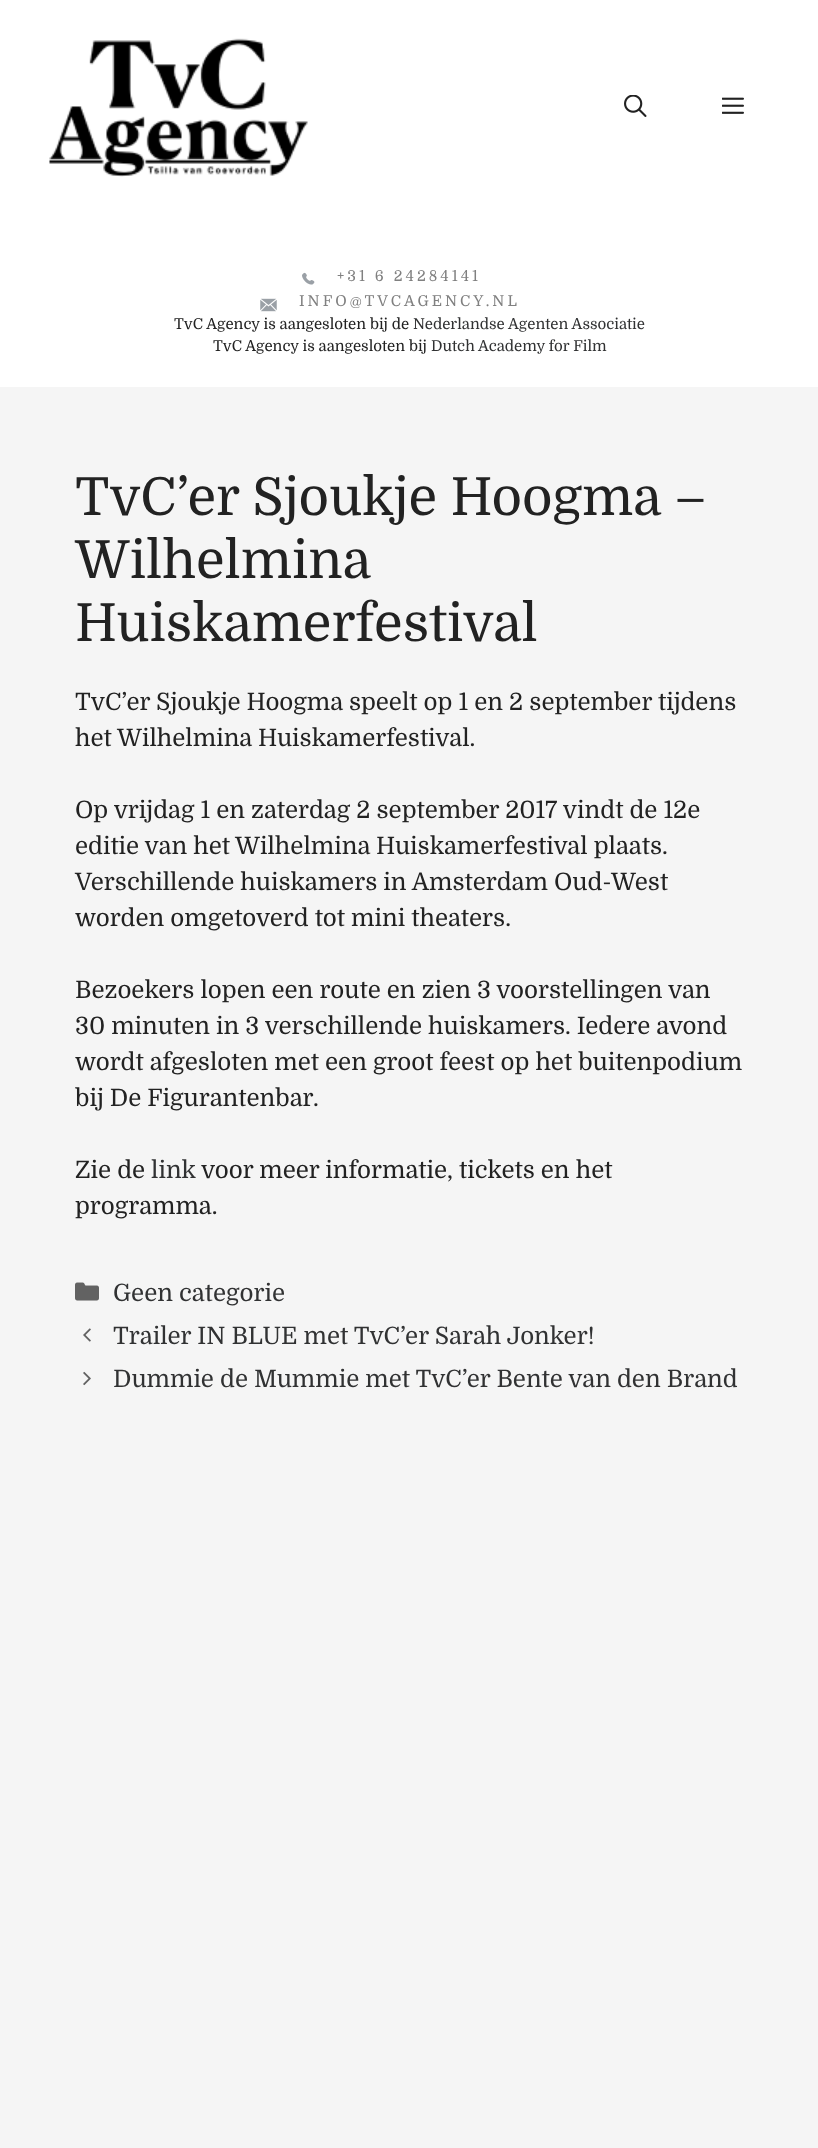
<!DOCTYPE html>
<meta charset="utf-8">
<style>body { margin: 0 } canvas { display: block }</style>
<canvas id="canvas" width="818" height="2148"></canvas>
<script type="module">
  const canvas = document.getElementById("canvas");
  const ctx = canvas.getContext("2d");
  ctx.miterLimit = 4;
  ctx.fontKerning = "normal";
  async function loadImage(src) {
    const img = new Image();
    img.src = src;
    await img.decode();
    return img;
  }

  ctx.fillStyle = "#f5f5f5";
  ctx.fillRect(0, 0, 818, 2148);
  ctx.fillStyle = "#ffffff";
  ctx.fillRect(0, 0, 818, 387);
  ctx.drawImage(await loadImage("img1.png"), 49, 38, 259, 139);
  ctx.drawImage(await loadImage("img2.png"), 624, 95, 23, 22);
  ctx.drawImage(await loadImage("img3.png"), 722, 97, 22, 17);
  ctx.drawImage(await loadImage("img4.png"), 302, 272, 13, 13);
  ctx.letterSpacing = "3px";
  ctx.font = "15px Domine";
  ctx.fillStyle = "#808080";
  ctx.fillText("+31 6 24284141", 337, 281);
  ctx.drawImage(await loadImage("img5.png"), 260, 298, 17, 14);
  ctx.fillText("INFO@TVCAGENCY.NL", 299, 306);
  ctx.letterSpacing = "0px";
  ctx.fillStyle = "#222222";
  ctx.fillText("TvC Agency is aangesloten bij de", 174, 329);
  ctx.fillStyle = "#313233";
  ctx.fillText("Nederlandse Agenten Associatie", 413, 329);
  ctx.fillStyle = "#222222";
  ctx.fillText("TvC Agency is aangesloten bij", 213, 351);
  ctx.fillStyle = "#313233";
  ctx.fillText("Dutch Academy for Film", 431, 351);
  ctx.font = "52.5px Domine";
  ctx.fillStyle = "#222222";
  ctx.fillText("TvC’er Sjoukje Hoogma –", 75, 515);
  ctx.fillText("Wilhelmina", 75, 578);
  ctx.fillText("Huiskamerfestival", 75, 641);
  ctx.font = "24px Domine";
  ctx.fillText("TvC’er Sjoukje Hoogma speelt op 1 en 2 september tijdens", 75, 710);
  ctx.fillText("het Wilhelmina Huiskamerfestival.", 75, 746);
  ctx.fillText("Op vrijdag 1 en zaterdag 2 september 2017 vindt de 12e", 75, 818);
  ctx.fillText("editie van het", 75, 854);
  ctx.fillText("Wilhelmina Huiskamerfestival plaats.", 235, 854);
  ctx.fillText("Verschillende huiskamers in Amsterdam Oud-West", 75, 890);
  ctx.fillText("worden omgetoverd tot mini theaters.", 75, 926);
  ctx.fillText("Bezoekers lopen een route en zien 3 voorstellingen van", 75, 998);
  ctx.fillText("30 minuten in 3 verschillende huiskamers. Iedere avond", 75, 1034);
  ctx.fillText("wordt afgesloten met een groot feest op het buitenpodium", 75, 1070);
  ctx.fillText("bij De Figurantenbar.", 75, 1106);
  ctx.fillText("Zie de", 75, 1178);
  ctx.fillStyle = "#313233";
  ctx.fillText("link", 151, 1178);
  ctx.fillStyle = "#222222";
  ctx.fillText("voor meer informatie, tickets en het", 201, 1178);
  ctx.fillText("programma.", 75, 1214);
  ctx.drawImage(await loadImage("img6.png"), 75, 1282, 24, 19);
  ctx.fillStyle = "#313233";
  ctx.fillText("Geen categorie", 113, 1301);
  ctx.drawImage(await loadImage("img7.png"), 83, 1328, 8, 14);
  ctx.fillText("Trailer IN BLUE met TvC’er Sarah Jonker!", 113, 1344);
  ctx.drawImage(await loadImage("img8.png"), 83, 1371, 8, 15);
  ctx.fillText("Dummie de Mummie met TvC’er Bente van den Brand", 113, 1387);
</script>
